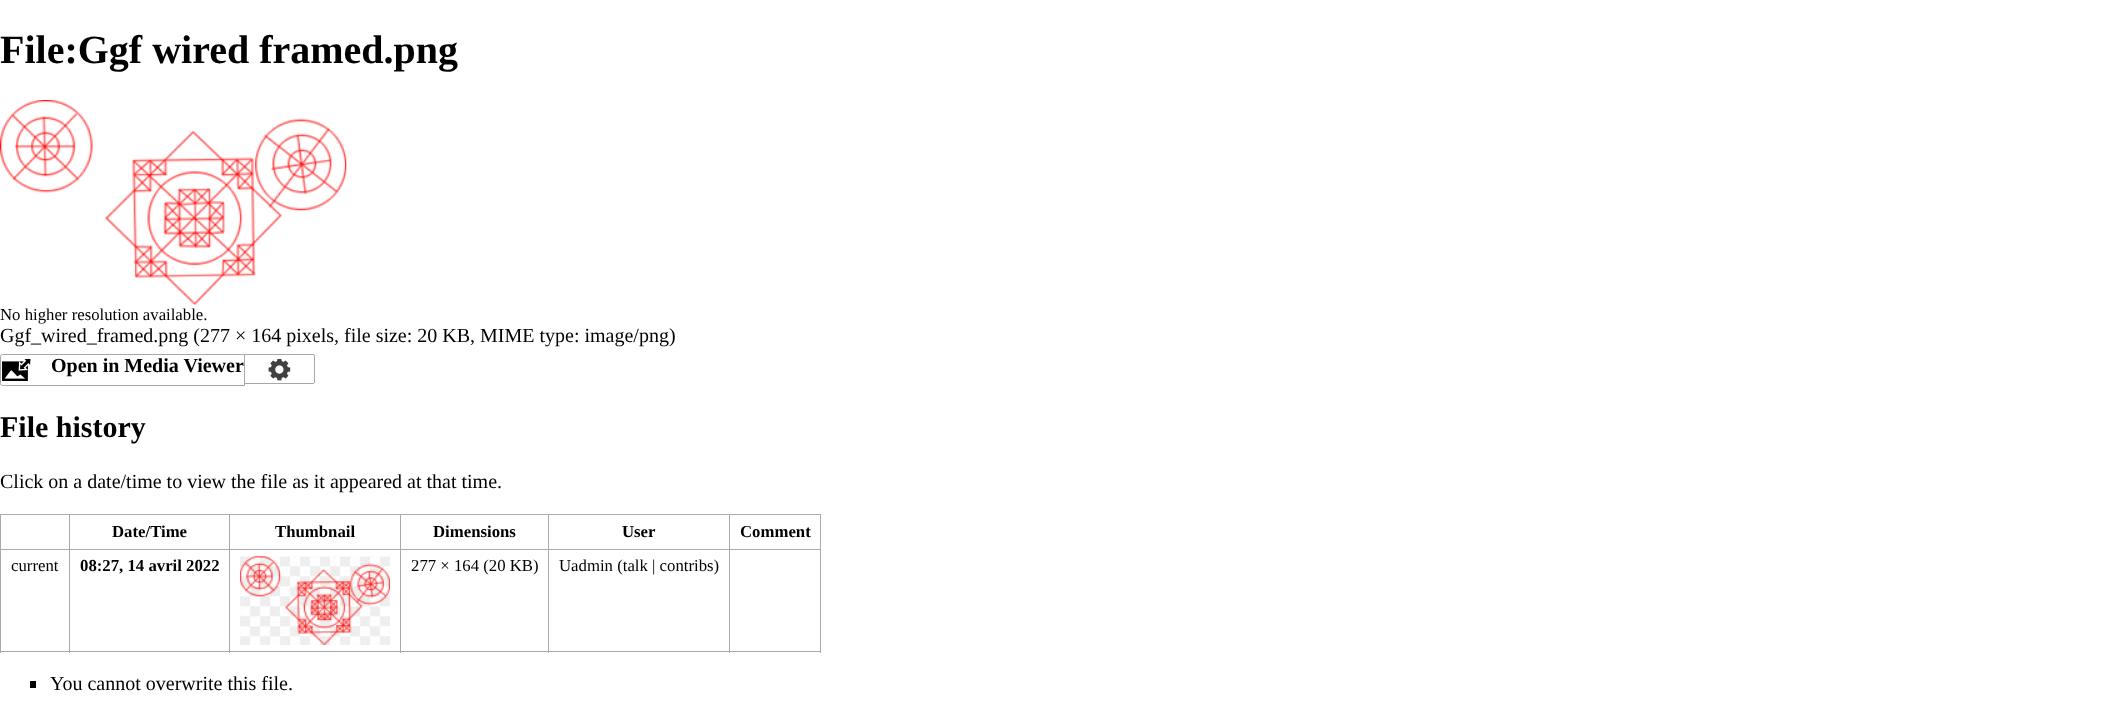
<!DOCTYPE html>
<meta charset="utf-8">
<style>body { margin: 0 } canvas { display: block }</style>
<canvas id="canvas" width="2111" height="728"></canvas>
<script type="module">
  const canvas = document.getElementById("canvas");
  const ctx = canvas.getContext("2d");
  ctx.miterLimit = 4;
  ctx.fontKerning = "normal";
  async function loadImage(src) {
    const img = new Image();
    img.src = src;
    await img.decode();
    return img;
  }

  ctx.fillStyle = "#ffffff";
  ctx.fillRect(0, 0, 2111, 728);
  ctx.font = "bold 40px Liberation Serif";
  ctx.fillStyle = "#000000";
  ctx.fillText("File:Ggf wired framed.png", 0, 63);
  ctx.drawImage(await loadImage("img1.png"), 0, 100, 347, 205);
  ctx.font = "16.75px Liberation Serif";
  ctx.fillText("No higher resolution available.", 0, 320);
  ctx.font = "20px Liberation Serif";
  ctx.fillText("Ggf_wired_framed.png (277 × 164 pixels, file size: 20 KB, MIME type: image/png)", 0, 342);
  ctx.beginPath();
  ctx.roundRect(0.5, 354.5, 244, 31, [2, 0, 0, 2]);
  ctx.strokeStyle = "#a2a9b1";
  ctx.stroke();
  ctx.drawImage(await loadImage("img2.png"), 2, 359, 29, 22);
  ctx.font = "bold 20px Liberation Serif";
  ctx.fillText("Open in Media Viewer", 51, 372);
  ctx.fillStyle = "#a2a9b1";
  ctx.fillRect(245, 354, 69, 1);
  ctx.fillRect(314, 355, 1, 28);
  ctx.fillRect(245, 383, 69, 1);
  ctx.drawImage(await loadImage("img3.png"), 268, 359, 23, 22);
  ctx.font = "bold 30px Liberation Serif";
  ctx.fillStyle = "#000000";
  ctx.fillText("File history", 0, 437);
  ctx.font = "20px Liberation Serif";
  ctx.fillText("Click on a date/time to view the file as it appeared at that time.", 0, 488);
  ctx.fillStyle = "#aaaaaa";
  ctx.fillRect(0, 514, 821, 1);
  ctx.fillRect(820, 514, 1, 139);
  ctx.fillRect(0, 651, 821, 1);
  ctx.fillRect(0, 514, 1, 139);
  ctx.fillRect(729, 549, 92, 1);
  ctx.fillRect(729, 549, 1, 104);
  ctx.fillRect(548, 549, 182, 1);
  ctx.fillRect(548, 549, 1, 104);
  ctx.fillRect(400, 549, 149, 1);
  ctx.fillRect(400, 549, 1, 104);
  ctx.fillRect(229, 549, 172, 1);
  ctx.fillRect(229, 549, 1, 104);
  ctx.fillRect(69, 549, 161, 1);
  ctx.fillRect(69, 549, 1, 104);
  ctx.fillRect(0, 549, 70, 1);
  ctx.fillRect(69, 514, 1, 36);
  ctx.font = "bold 16.75px Liberation Serif";
  ctx.fillStyle = "#000000";
  ctx.fillText("Date/Time", 112, 537);
  ctx.fillStyle = "#aaaaaa";
  ctx.fillRect(229, 514, 1, 36);
  ctx.fillStyle = "#000000";
  ctx.fillText("Thumbnail", 275, 537);
  ctx.fillStyle = "#aaaaaa";
  ctx.fillRect(400, 514, 1, 36);
  ctx.fillStyle = "#000000";
  ctx.fillText("Dimensions", 433, 537);
  ctx.fillStyle = "#aaaaaa";
  ctx.fillRect(548, 514, 1, 36);
  ctx.fillStyle = "#000000";
  ctx.fillText("User", 622, 537);
  ctx.fillStyle = "#aaaaaa";
  ctx.fillRect(729, 514, 1, 36);
  ctx.fillStyle = "#000000";
  ctx.fillText("Comment", 740, 537);
  ctx.font = "16.75px Liberation Serif";
  ctx.fillText("current", 11, 571);
  ctx.font = "bold 16.75px Liberation Serif";
  ctx.fillText("08:27, 14 avril 2022", 80, 571);
  ctx.drawImage(await loadImage("img4.png"), 240, 556, 150, 89);
  ctx.drawImage(await loadImage("img5.png"), 240, 556, 150, 89);
  ctx.font = "16.75px Liberation Serif";
  ctx.fillText("277 × 164 (20 KB)", 411, 571);
  ctx.fillText("Uadmin (talk | contribs)", 559, 571);
  ctx.fillRect(30, 681, 6, 7);
  ctx.font = "20px Liberation Serif";
  ctx.fillText("You cannot overwrite this file.", 50, 690);
</script>
